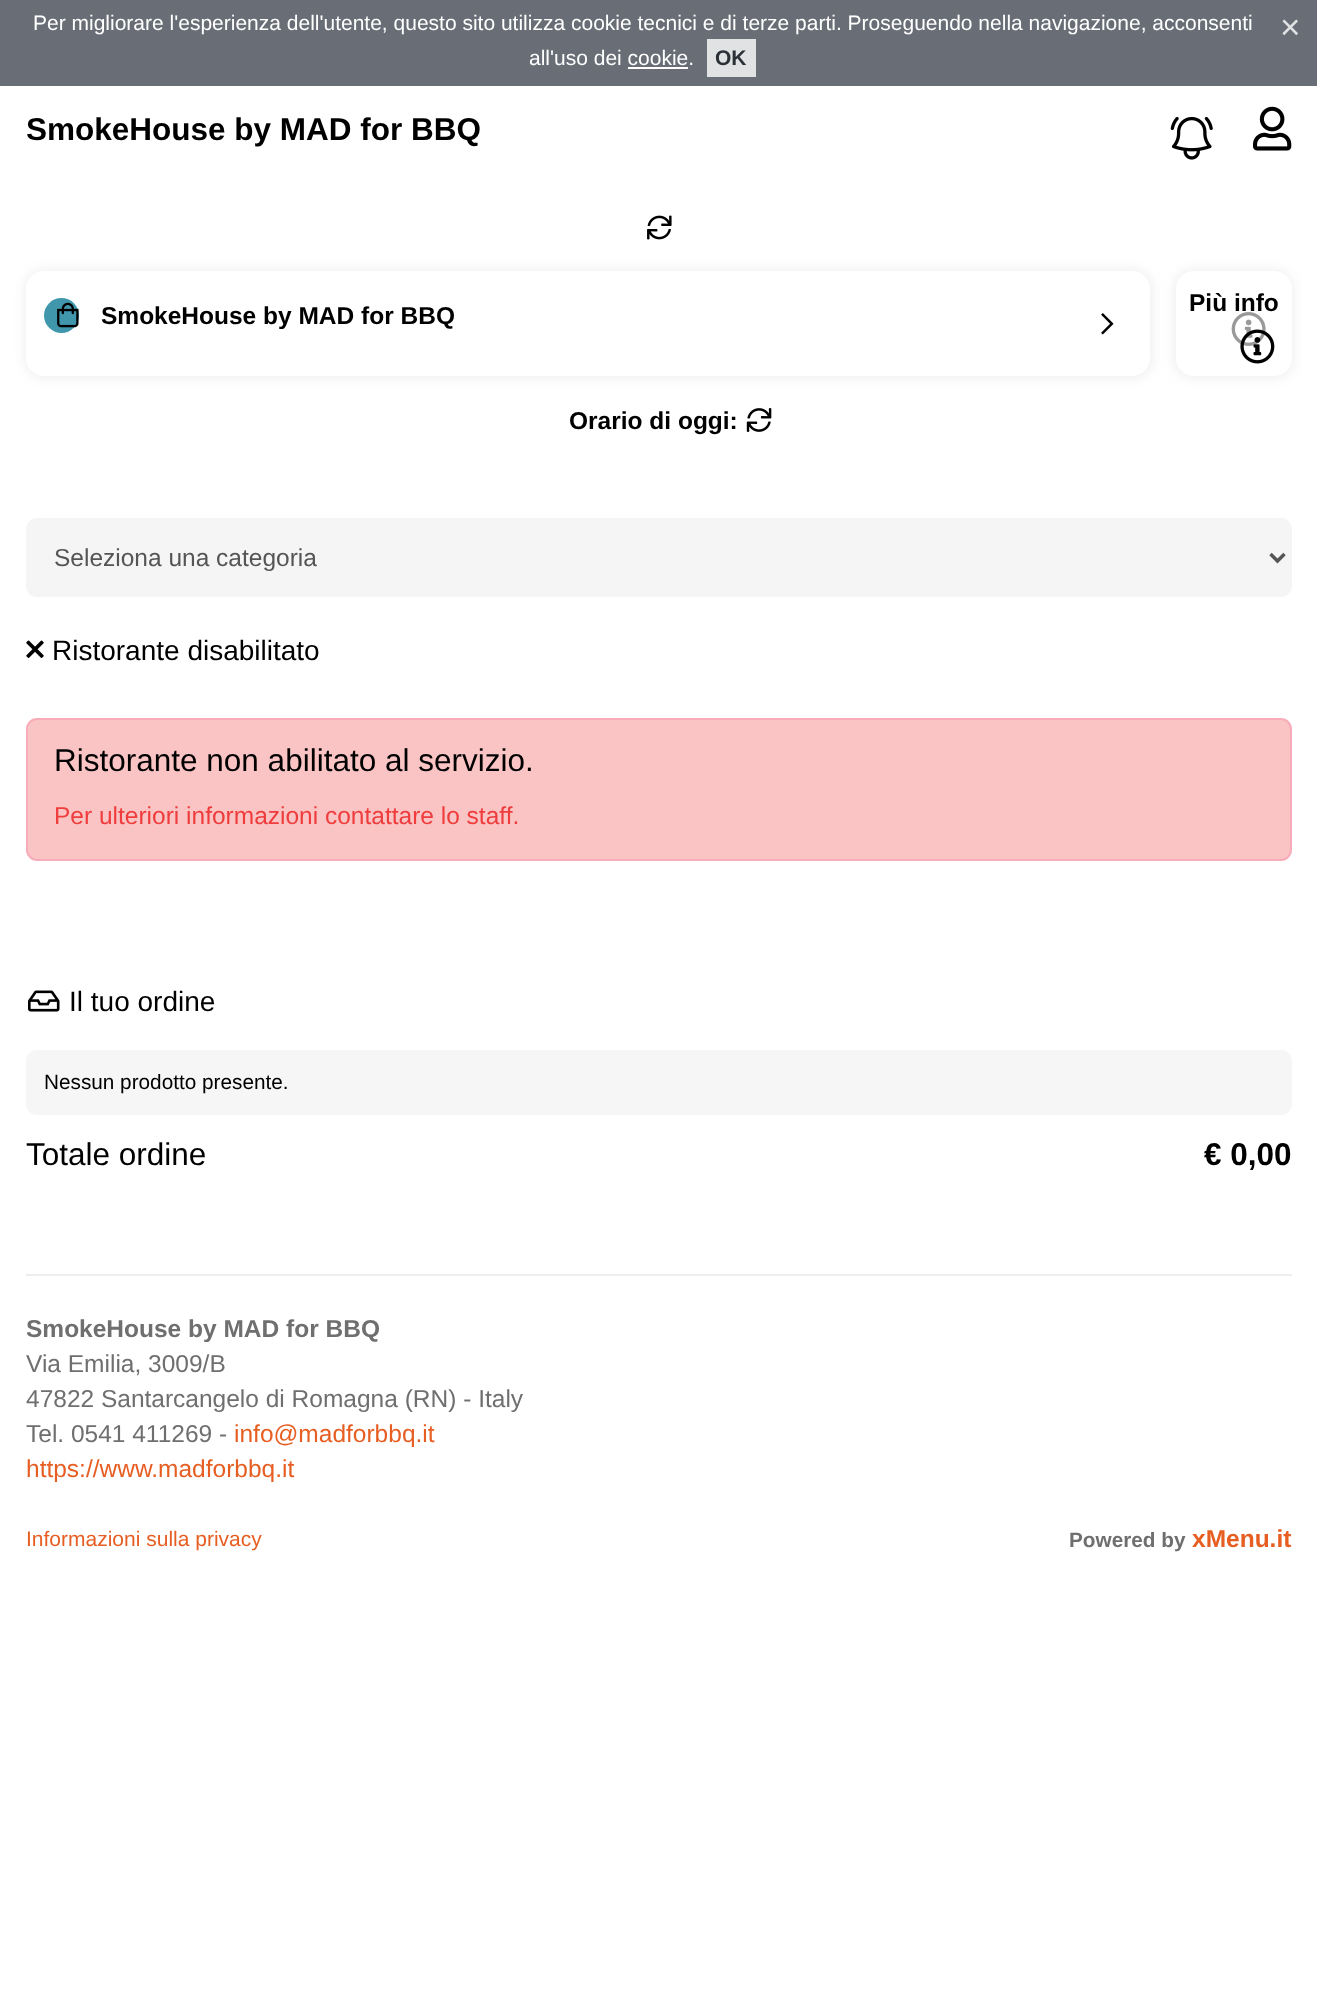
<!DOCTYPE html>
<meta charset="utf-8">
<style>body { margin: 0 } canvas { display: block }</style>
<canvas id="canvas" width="1317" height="2005"></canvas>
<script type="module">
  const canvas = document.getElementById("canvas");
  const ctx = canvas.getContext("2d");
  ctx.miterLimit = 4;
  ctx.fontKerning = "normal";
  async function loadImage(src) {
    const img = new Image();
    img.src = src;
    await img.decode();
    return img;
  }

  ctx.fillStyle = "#ffffff";
  ctx.fillRect(0, 0, 1317, 2005);
  ctx.fillStyle = "#696e76";
  ctx.fillRect(0, 0, 1317, 86);
  ctx.font = "21px Liberation Sans";
  ctx.fillStyle = "#ffffff";
  ctx.fillText("Per migliorare l'esperienza dell'utente, questo sito utilizza cookie tecnici e di terze parti. Proseguendo nella navigazione, acconsenti", 33, 30);
  ctx.font = "35px Liberation Sans";
  ctx.fillStyle = "#e1e2e4";
  ctx.fillText("×", 1280, 39);
  ctx.font = "21px Liberation Sans";
  ctx.fillStyle = "#ffffff";
  ctx.fillText("all'uso dei cookie.", 529, 65);
  ctx.fillStyle = "#e1e2e4";
  ctx.fillRect(707, 39, 49, 38);
  ctx.font = "bold 21px Liberation Sans";
  ctx.fillStyle = "#2c3138";
  ctx.fillText("OK", 715, 65);
  ctx.fillStyle = "#ffffff";
  ctx.fillRect(628, 67, 60, 2);
  ctx.font = "bold 31.5px Liberation Sans";
  ctx.fillStyle = "#000000";
  ctx.fillText("SmokeHouse by MAD for BBQ", 26, 140);
  ctx.drawImage(await loadImage("img1.png"), 1170, 116, 43, 44);
  ctx.drawImage(await loadImage("img2.png"), 1253, 106, 39, 45);
  ctx.drawImage(await loadImage("img3.png"), 647, 215, 25, 25);
  ctx.fillStyle = "#eeeeee";
  ctx.filter = "blur(6px)";
  ctx.beginPath();
  ctx.roundRect(1174, 270, 119, 108, 19);
  ctx.fill();
  ctx.filter = "none";
  ctx.fillStyle = "#ffffff";
  ctx.beginPath();
  ctx.roundRect(1176, 271, 116, 105, 18);
  ctx.fill();
  ctx.font = "bold 24.5px Liberation Sans";
  ctx.fillStyle = "#000000";
  ctx.fillText("Più info", 1189, 311);
  ctx.drawImage(await loadImage("img5.png"), 1240, 329, 35, 35);
  ctx.drawImage(await loadImage("img4.png"), 1231, 312, 35, 34);
  ctx.fillStyle = "#4097ac";
  ctx.beginPath();
  ctx.arc(61.5, 315.5, 17.5, 0, Math.PI * 2);
  ctx.fill();
  ctx.save();
  ctx.beginPath();
  ctx.moveTo(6, 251);
  ctx.lineTo(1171, 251);
  ctx.lineTo(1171, 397);
  ctx.lineTo(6, 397);
  ctx.closePath();
  ctx.moveTo(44, 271);
  ctx.lineTo(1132, 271);
  ctx.bezierCurveTo(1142, 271, 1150, 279, 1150, 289);
  ctx.lineTo(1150, 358);
  ctx.bezierCurveTo(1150, 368, 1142, 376, 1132, 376);
  ctx.lineTo(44, 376);
  ctx.bezierCurveTo(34, 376, 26, 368, 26, 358);
  ctx.lineTo(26, 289);
  ctx.bezierCurveTo(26, 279, 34, 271, 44, 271);
  ctx.closePath();
  ctx.clip("evenodd");
  ctx.fillStyle = "#eeeeee";
  ctx.filter = "blur(6px)";
  ctx.beginPath();
  ctx.roundRect(25, 270, 1127, 108, 19);
  ctx.fill();
  ctx.filter = "none";
  ctx.restore();
  ctx.drawImage(await loadImage("img6.png"), 57, 302, 22, 26);
  ctx.fillStyle = "#000000";
  ctx.fillText("SmokeHouse by MAD for BBQ", 101, 324);
  ctx.drawImage(await loadImage("img7.png"), 1101, 313, 13, 22);
  ctx.fillText("Orario di oggi:", 569, 429);
  ctx.drawImage(await loadImage("img8.png"), 746, 408, 26, 24);
  ctx.fillStyle = "#f5f5f5";
  ctx.beginPath();
  ctx.roundRect(26, 518, 1266, 79, 11);
  ctx.fill();
  ctx.beginPath();
  ctx.moveTo(1270.5, 554);
  ctx.lineTo(1277.5, 561);
  ctx.lineTo(1284.5, 554);
  ctx.strokeStyle = "#555555";
  ctx.lineWidth = 3.5;
  ctx.stroke();
  ctx.font = "24.5px Liberation Sans";
  ctx.fillStyle = "#555555";
  ctx.fillText("Seleziona una categoria", 54, 566);
  ctx.drawImage(await loadImage("img9.png"), 26, 640, 18, 18);
  ctx.font = "28px Liberation Sans";
  ctx.fillStyle = "#000000";
  ctx.fillText("Ristorante disabilitato", 52, 660);
  ctx.fillStyle = "#fac4c4";
  ctx.beginPath();
  ctx.roundRect(27, 719, 1264, 141, 10);
  ctx.fill();
  ctx.strokeStyle = "#f8acb9";
  ctx.lineWidth = 2;
  ctx.stroke();
  ctx.font = "31.5px Liberation Sans";
  ctx.fillStyle = "#000000";
  ctx.fillText("Ristorante non abilitato al servizio.", 54, 771);
  ctx.font = "24.5px Liberation Sans";
  ctx.fillStyle = "#ef3c3c";
  ctx.fillText("Per ulteriori informazioni contattare lo staff.", 54, 824);
  ctx.drawImage(await loadImage("img10.png"), 28, 990, 32, 22);
  ctx.font = "28px Liberation Sans";
  ctx.fillStyle = "#000000";
  ctx.fillText("Il tuo ordine", 69, 1011);
  ctx.fillStyle = "#f6f6f6";
  ctx.beginPath();
  ctx.roundRect(26, 1050, 1266, 65, 11);
  ctx.fill();
  ctx.font = "20.75px Liberation Sans";
  ctx.fillStyle = "#000000";
  ctx.fillText("Nessun prodotto presente.", 44, 1089);
  ctx.font = "31.5px Liberation Sans";
  ctx.fillText("Totale ordine", 26, 1165);
  ctx.font = "bold 31.5px Liberation Sans";
  ctx.fillText("€ 0,00", 1204, 1165);
  ctx.fillStyle = "#eeeeee";
  ctx.fillRect(26, 1274, 1266, 2);
  ctx.font = "bold 24.5px Liberation Sans";
  ctx.fillStyle = "#6f6f6f";
  ctx.fillText("SmokeHouse by MAD for BBQ", 26, 1337);
  ctx.font = "24.5px Liberation Sans";
  ctx.fillText("Via Emilia, 3009/B", 26, 1372);
  ctx.fillText("47822 Santarcangelo di Romagna (RN) - Italy", 26, 1407);
  ctx.fillText("Tel. 0541 411269 -", 26, 1442);
  ctx.fillStyle = "#e75e23";
  ctx.fillText("info@madforbbq.it", 234, 1442);
  ctx.fillText("https://www.madforbbq.it", 26, 1477);
  ctx.font = "21px Liberation Sans";
  ctx.fillText("Informazioni sulla privacy", 26, 1546);
  ctx.font = "bold 20.75px Liberation Sans";
  ctx.fillStyle = "#6f6f6f";
  ctx.fillText("Powered by", 1069, 1547);
  ctx.font = "bold 24.5px Liberation Sans";
  ctx.fillStyle = "#e75e23";
  ctx.fillText("xMenu.it", 1192, 1547);
</script>
